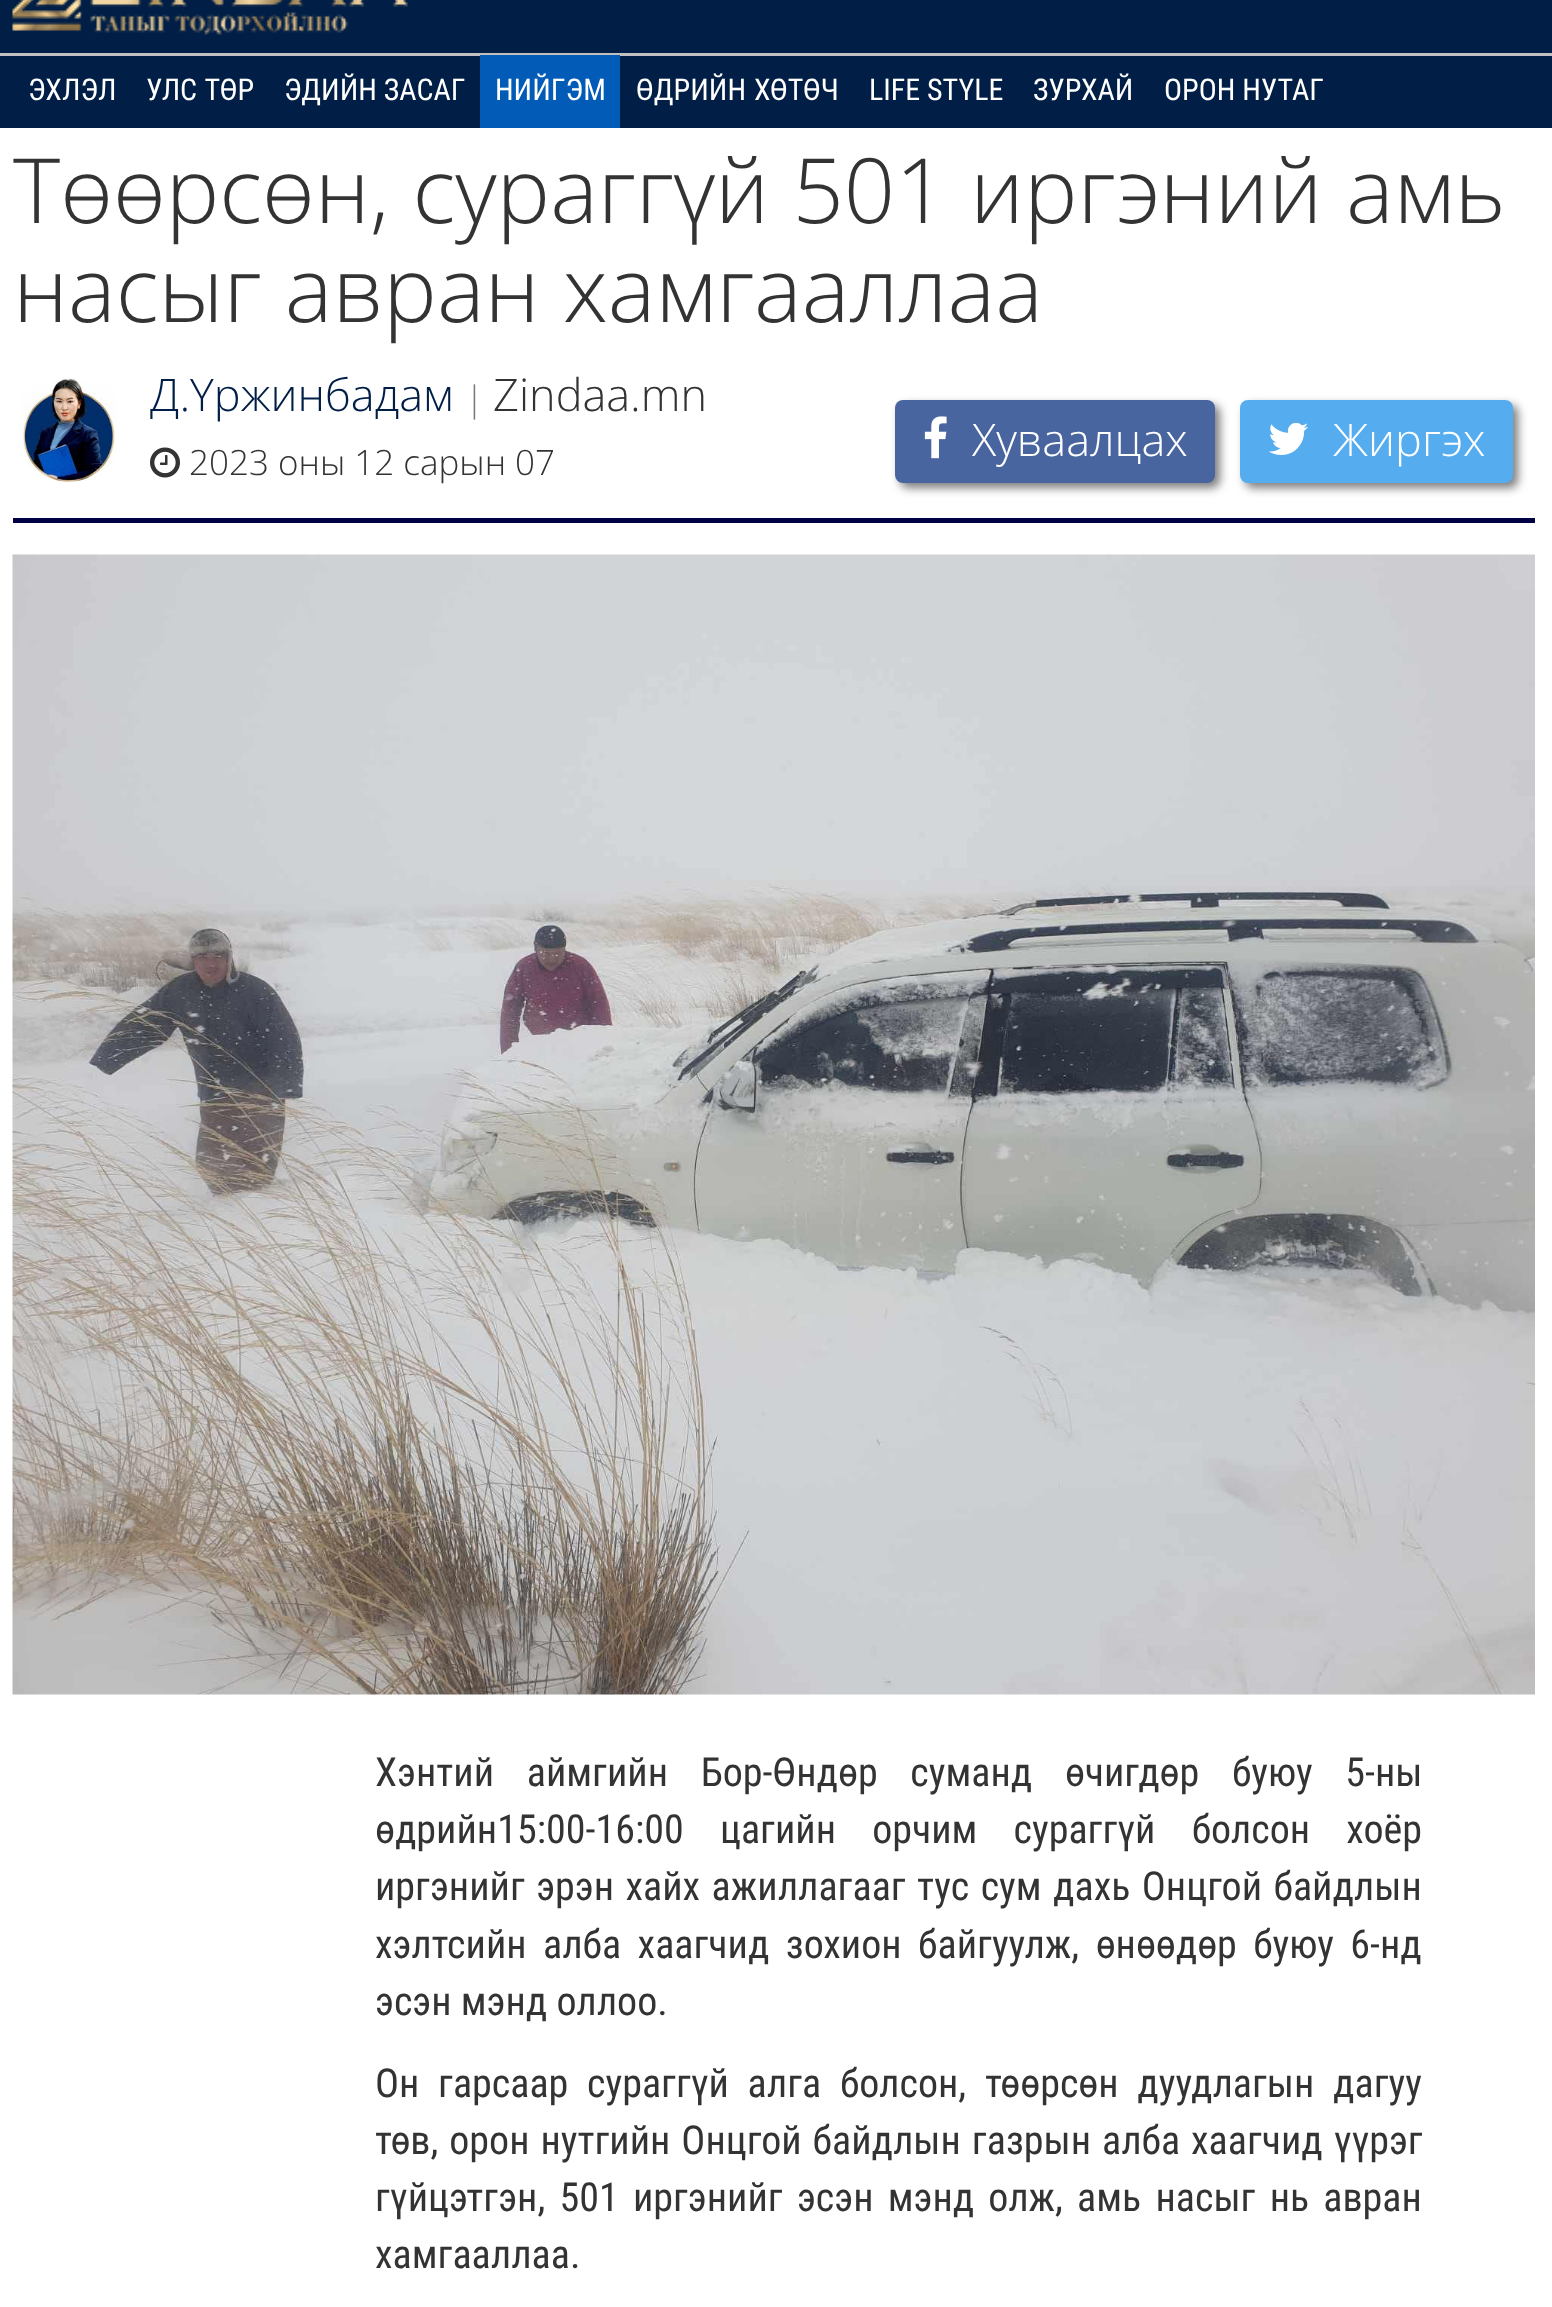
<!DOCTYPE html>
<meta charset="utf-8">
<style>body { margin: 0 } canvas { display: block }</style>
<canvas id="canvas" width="1552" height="2307"></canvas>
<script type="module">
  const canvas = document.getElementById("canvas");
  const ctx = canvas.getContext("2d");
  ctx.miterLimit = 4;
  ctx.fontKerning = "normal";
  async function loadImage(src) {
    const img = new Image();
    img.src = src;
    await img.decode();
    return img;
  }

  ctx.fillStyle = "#ffffff";
  ctx.fillRect(0, 0, 1552, 2307);
  ctx.fillStyle = "#001e46";
  ctx.fillRect(0, 0, 1552, 128);
  ctx.drawImage(await loadImage("img1.png"), 12, 0, 396, 35);
  ctx.fillStyle = "#c0c0c0";
  ctx.fillRect(0, 53, 1552, 3);
  ctx.font = "30px Roboto Condensed";
  ctx.fillStyle = "#ffffff";
  ctx.fillText("ЭХЛЭЛ", 28, 100);
  ctx.wordSpacing = "1px";
  ctx.fillText("УЛС ТӨР", 146, 100);
  ctx.wordSpacing = "0px";
  ctx.fillText("ЭДИЙН ЗАСАГ", 284, 100);
  ctx.fillStyle = "#025bb7";
  ctx.fillRect(480, 55, 140, 73);
  ctx.fillStyle = "#ffffff";
  ctx.fillText("НИЙГЭМ", 495, 100);
  ctx.wordSpacing = "1px";
  ctx.fillText("ӨДРИЙН ХӨТӨЧ", 636, 100);
  ctx.wordSpacing = "0px";
  ctx.fillText("LIFE STYLE", 869, 100);
  ctx.fillText("ЗУРХАЙ", 1033, 100);
  ctx.fillText("ОРОН НУТАГ", 1164, 100);
  ctx.font = "300 90px Open Sans";
  ctx.fillStyle = "#333333";
  ctx.fillText("Төөрсөн, сураггүй 501 иргэний амь", 13, 223);
  ctx.fillText("насыг авран хамгааллаа", 13, 322);
  ctx.fillStyle = "#000144";
  ctx.fillRect(13, 518, 1522, 5);
  ctx.drawImage(await loadImage("img2.png"), 21, 378, 96, 104);
  ctx.font = "300 45px Open Sans";
  ctx.fillStyle = "#001e46";
  ctx.fillText("Д.Үржинбадам", 150, 411);
  ctx.font = "300 35px Open Sans";
  ctx.fillStyle = "#777777";
  ctx.fillText("|", 465, 411);
  ctx.font = "300 45px Open Sans";
  ctx.fillStyle = "#333333";
  ctx.fillText("Zindaa.mn", 493, 411);
  ctx.drawImage(await loadImage("img3.png"), 150, 447, 30, 31);
  ctx.font = "300 35px Open Sans";
  ctx.fillText("2023 оны 12 сарын 07", 189, 475);
  ctx.fillStyle = "#7d7c7d";
  ctx.filter = "blur(5px)";
  ctx.beginPath();
  ctx.roundRect(900, 405, 320, 83, 8);
  ctx.fill();
  ctx.filter = "none";
  ctx.fillStyle = "#4965a0";
  ctx.beginPath();
  ctx.roundRect(895, 400, 320, 83, 8);
  ctx.fill();
  ctx.drawImage(await loadImage("img4.png"), 924, 416, 23, 43);
  ctx.font = "300 45px Open Sans";
  ctx.fillStyle = "#ffffff";
  ctx.fillText("Хуваалцах", 972, 456);
  ctx.fillStyle = "#7d7c7d";
  ctx.filter = "blur(5px)";
  ctx.beginPath();
  ctx.roundRect(1245, 405, 273, 83, 8);
  ctx.fill();
  ctx.filter = "none";
  ctx.fillStyle = "#55acee";
  ctx.beginPath();
  ctx.roundRect(1240, 400, 273, 83, 8);
  ctx.fill();
  ctx.drawImage(await loadImage("img5.png"), 1268, 422, 40, 33);
  ctx.fillStyle = "#ffffff";
  ctx.fillText("Жиргэх", 1333, 456);
  ctx.drawImage(await loadImage("img6.png"), 12, 554, 1523, 1141);
  ctx.wordSpacing = "23.5px";
  ctx.font = "40px Roboto Condensed";
  ctx.fillStyle = "#333333";
  ctx.fillText("Хэнтий аймгийн Бор-Өндөр суманд өчигдөр буюу 5-ны", 375, 1786);
  ctx.wordSpacing = "27px";
  ctx.fillText("өдрийн15:00-16:00 цагийн орчим сураггүй болсон хоёр", 375, 1843);
  ctx.wordSpacing = "2.25px";
  ctx.fillText("иргэнийг эрэн хайх ажиллагааг тус сум дахь Онцгой байдлын", 375, 1900);
  ctx.wordSpacing = "7.25px";
  ctx.fillText("хэлтсийн алба хаагчид зохион байгуулж, өнөөдөр буюу 6-нд", 375, 1958);
  ctx.wordSpacing = "0px";
  ctx.fillText("эсэн мэнд оллоо.", 375, 2015);
  ctx.wordSpacing = "9.5px";
  ctx.fillText("Он гарсаар сураггүй алга болсон, төөрсөн дуудлагын дагуу", 375, 2097);
  ctx.wordSpacing = "1.75px";
  ctx.fillText("төв, орон нутгийн Онцгой байдлын газрын алба хаагчид үүрэг", 375, 2154);
  ctx.wordSpacing = "5px";
  ctx.fillText("гүйцэтгэн, 501 иргэнийг эсэн мэнд олж, амь насыг нь авран", 375, 2211);
  ctx.wordSpacing = "0px";
  ctx.fillText("хамгааллаа.", 375, 2268);
</script>
